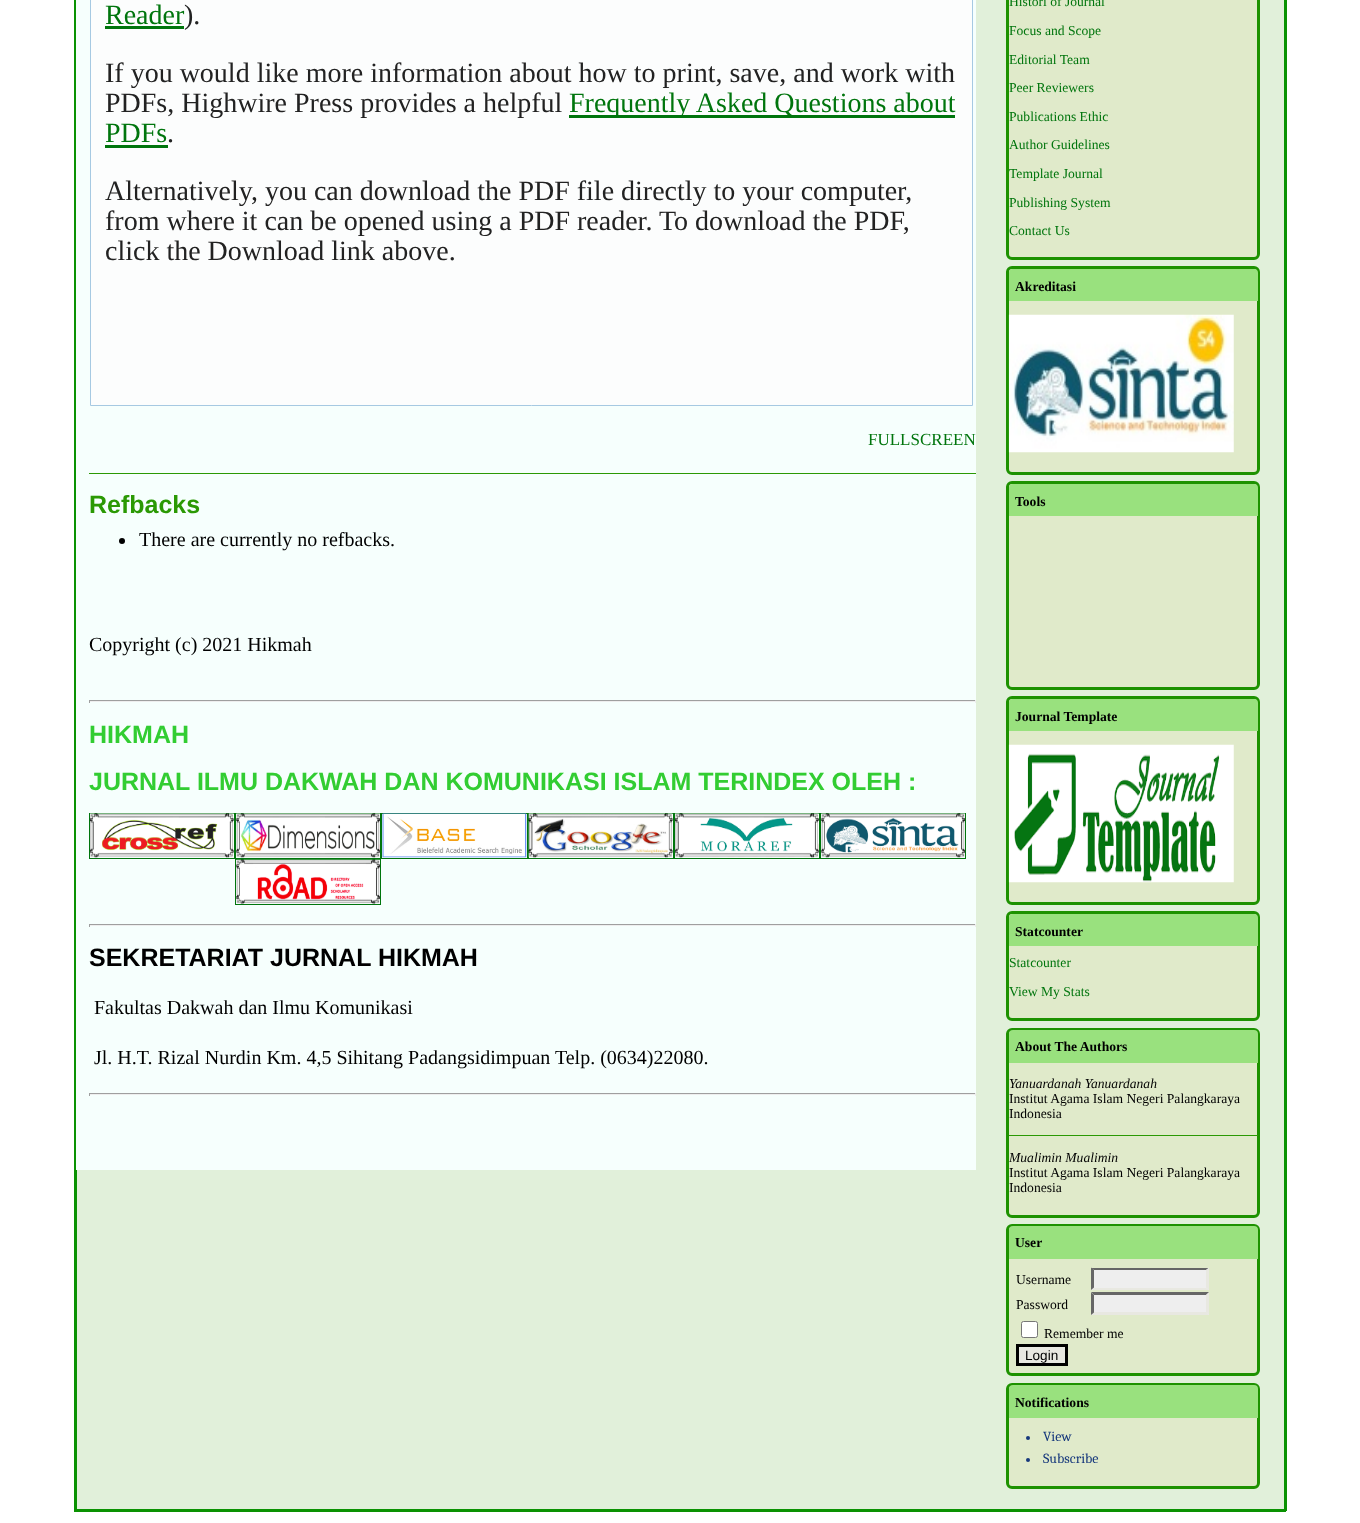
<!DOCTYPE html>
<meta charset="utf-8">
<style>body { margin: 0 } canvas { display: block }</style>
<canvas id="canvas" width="1360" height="1523"></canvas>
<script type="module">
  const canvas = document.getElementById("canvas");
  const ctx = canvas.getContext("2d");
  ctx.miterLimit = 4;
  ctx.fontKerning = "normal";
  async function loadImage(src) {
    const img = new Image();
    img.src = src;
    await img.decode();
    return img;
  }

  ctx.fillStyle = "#ffffff";
  ctx.fillRect(0, 0, 1360, 1523);
  ctx.fillStyle = "#e1f0da";
  ctx.fillRect(77, 0, 1207, 1509);
  ctx.fillStyle = "#0a9202";
  ctx.fillRect(1284, 0, 3, 1511);
  ctx.fillRect(74, 1509, 1212, 3);
  ctx.fillRect(74, 0, 3, 1511);
  ctx.fillStyle = "#f6fffd";
  ctx.fillRect(76, 0, 900, 1170);
  ctx.fillStyle = "#fcfdfd";
  ctx.beginPath();
  ctx.rect(90.5, -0.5, 882, 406);
  ctx.fill();
  ctx.strokeStyle = "#a6c9e2";
  ctx.stroke();
  ctx.font = "28px Liberation Serif";
  ctx.fillStyle = "#00750d";
  ctx.fillText("Reader", 105, 24);
  ctx.fillRect(105, 26, 79, 3);
  ctx.fillStyle = "#222222";
  ctx.fillText(").", 184, 24);
  ctx.fillText("If you would like more information about how to print, save, and work with", 105, 82);
  ctx.fillText("PDFs, Highwire Press provides a helpful", 105, 112);
  ctx.fillStyle = "#00750d";
  ctx.fillRect(569, 115, 386, 3);
  ctx.fillText("Frequently Asked Questions about", 569, 112);
  ctx.fillText("PDFs", 105, 142);
  ctx.fillRect(105, 145, 63, 3);
  ctx.fillStyle = "#222222";
  ctx.fillText(".", 167, 142);
  ctx.fillText("Alternatively, you can download the PDF file directly to your computer,", 105, 200);
  ctx.fillText("from where it can be opened using a PDF reader. To download the PDF,", 105, 230);
  ctx.fillText("click the Download link above.", 105, 260);
  ctx.font = "17px Liberation Serif";
  ctx.fillStyle = "#00750d";
  ctx.fillText("FULLSCREEN", 868, 445);
  ctx.fillStyle = "#2b9904";
  ctx.fillRect(89, 473, 887, 1);
  ctx.font = "bold 25px Liberation Sans";
  ctx.fillText("Refbacks", 89, 513);
  ctx.fillStyle = "#000000";
  ctx.beginPath();
  ctx.arc(122, 541, 3, 0, Math.PI * 2);
  ctx.fill();
  ctx.font = "20px Liberation Serif";
  ctx.fillText("There are currently no refbacks.", 139, 546);
  ctx.fillText("Copyright (c) 2021 Hikmah", 89, 651);
  ctx.fillStyle = "#9f9f9f";
  ctx.fillRect(89, 700, 887, 1);
  ctx.fillStyle = "#eeeeee";
  ctx.fillRect(975, 700, 1, 3);
  ctx.fillRect(89, 701, 887, 1);
  ctx.fillStyle = "#9f9f9f";
  ctx.fillRect(89, 700, 1, 3);
  ctx.font = "bold 25px Liberation Sans";
  ctx.fillStyle = "#32cd32";
  ctx.fillText("HIKMAH", 89, 743);
  ctx.fillText("JURNAL ILMU DAKWAH DAN KOMUNIKASI ISLAM TERINDEX OLEH :", 89, 790);
  ctx.strokeStyle = "#00750d";
  ctx.strokeRect(89.5, 813.5, 145, 45);
  ctx.drawImage(await loadImage("img1.png"), 90, 813, 144, 45);
  ctx.strokeRect(235.5, 813.5, 145, 45);
  ctx.drawImage(await loadImage("img2.png"), 236, 813, 144, 45);
  ctx.strokeRect(381.5, 813.5, 146, 45);
  ctx.drawImage(await loadImage("img3.png"), 382, 813, 145, 45);
  ctx.strokeRect(528.5, 813.5, 145, 45);
  ctx.drawImage(await loadImage("img4.png"), 528, 813, 145, 45);
  ctx.strokeRect(674.5, 813.5, 145, 45);
  ctx.drawImage(await loadImage("img5.png"), 675, 813, 144, 45);
  ctx.strokeRect(820.5, 813.5, 145, 45);
  ctx.drawImage(await loadImage("img6.png"), 821, 813, 144, 45);
  ctx.strokeRect(235.5, 859.5, 145, 45);
  ctx.drawImage(await loadImage("img7.png"), 236, 859, 144, 45);
  ctx.fillStyle = "#9f9f9f";
  ctx.fillRect(89, 924, 887, 1);
  ctx.fillStyle = "#eeeeee";
  ctx.fillRect(975, 924, 1, 3);
  ctx.fillRect(89, 925, 887, 1);
  ctx.fillStyle = "#9f9f9f";
  ctx.fillRect(89, 924, 1, 3);
  ctx.fillStyle = "#000000";
  ctx.fillText("SEKRETARIAT JURNAL HIKMAH", 89, 966);
  ctx.font = "20px Liberation Serif";
  ctx.fillText("Fakultas Dakwah dan Ilmu Komunikasi", 94, 1014);
  ctx.fillText("Jl. H.T. Rizal Nurdin Km. 4,5 Sihitang Padangsidimpuan Telp. (0634)22080.", 94, 1064);
  ctx.fillStyle = "#9f9f9f";
  ctx.fillRect(89, 1093, 887, 1);
  ctx.fillStyle = "#eeeeee";
  ctx.fillRect(975, 1093, 1, 3);
  ctx.fillRect(89, 1094, 887, 1);
  ctx.fillStyle = "#9f9f9f";
  ctx.fillRect(89, 1093, 1, 3);
  ctx.fillStyle = "#e0eaca";
  ctx.beginPath();
  ctx.roundRect(1007.5, -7.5, 251, 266, 4.5);
  ctx.fill();
  ctx.strokeStyle = "#1d9200";
  ctx.lineWidth = 3;
  ctx.stroke();
  ctx.font = "13.6px Liberation Serif";
  ctx.fillStyle = "#00750d";
  ctx.fillText("Histori of Journal", 1009, 6);
  ctx.fillText("Focus and Scope", 1009, 35);
  ctx.fillText("Editorial Team", 1009, 64);
  ctx.fillText("Peer Reviewers", 1009, 92);
  ctx.fillText("Publications Ethic", 1009, 121);
  ctx.fillText("Author Guidelines", 1009, 149);
  ctx.fillText("Template Journal", 1009, 178);
  ctx.fillText("Publishing System", 1009, 207);
  ctx.fillText("Contact Us", 1009, 235);
  ctx.fillStyle = "#e0eaca";
  ctx.beginPath();
  ctx.roundRect(1007.5, 267.5, 251, 206, 4.5);
  ctx.fill();
  ctx.stroke();
  ctx.fillStyle = "#99e17e";
  ctx.beginPath();
  ctx.roundRect(1009, 269, 249, 32, [4, 4, 0, 0]);
  ctx.fill();
  ctx.font = "bold 13.6px Liberation Serif";
  ctx.fillStyle = "#000000";
  ctx.fillText("Akreditasi", 1015, 291);
  ctx.drawImage(await loadImage("img8.png"), 1008, 314, 226, 139);
  ctx.fillStyle = "#e0eaca";
  ctx.beginPath();
  ctx.roundRect(1007.5, 482.5, 251, 206, 4.5);
  ctx.fill();
  ctx.stroke();
  ctx.fillStyle = "#99e17e";
  ctx.beginPath();
  ctx.roundRect(1009, 484, 249, 32, [4, 4, 0, 0]);
  ctx.fill();
  ctx.fillStyle = "#000000";
  ctx.fillText("Tools", 1015, 506);
  ctx.fillStyle = "#e0eaca";
  ctx.beginPath();
  ctx.roundRect(1007.5, 697.5, 251, 206, 4.5);
  ctx.fill();
  ctx.stroke();
  ctx.fillStyle = "#99e17e";
  ctx.beginPath();
  ctx.roundRect(1009, 699, 249, 32, [4, 4, 0, 0]);
  ctx.fill();
  ctx.fillStyle = "#000000";
  ctx.fillText("Journal Template", 1015, 721);
  ctx.drawImage(await loadImage("img9.png"), 1008, 744, 226, 139);
  ctx.fillStyle = "#e0eaca";
  ctx.beginPath();
  ctx.roundRect(1007.5, 912.5, 251, 107, 4.5);
  ctx.fill();
  ctx.stroke();
  ctx.fillStyle = "#99e17e";
  ctx.beginPath();
  ctx.roundRect(1009, 914, 249, 32, [4, 4, 0, 0]);
  ctx.fill();
  ctx.fillStyle = "#000000";
  ctx.fillText("Statcounter", 1015, 936);
  ctx.font = "13.6px Liberation Serif";
  ctx.fillStyle = "#00750d";
  ctx.fillText("Statcounter", 1009, 967);
  ctx.fillText("View My Stats", 1009, 996);
  ctx.fillStyle = "#e0eaca";
  ctx.beginPath();
  ctx.roundRect(1007.5, 1029.5, 251, 187, 4.5);
  ctx.fill();
  ctx.stroke();
  ctx.fillStyle = "#99e17e";
  ctx.beginPath();
  ctx.roundRect(1009, 1030, 249, 33, [4, 4, 0, 0]);
  ctx.fill();
  ctx.font = "bold 13.6px Liberation Serif";
  ctx.fillStyle = "#000000";
  ctx.fillText("About The Authors", 1015, 1051);
  ctx.font = "italic 13.6px Liberation Serif";
  ctx.fillText("Yanuardanah Yanuardanah", 1009, 1088);
  ctx.font = "13.6px Liberation Serif";
  ctx.fillText("Institut Agama Islam Negeri Palangkaraya", 1009, 1103);
  ctx.fillText("Indonesia", 1009, 1118);
  ctx.fillStyle = "#2b9904";
  ctx.fillRect(1009, 1135, 249, 1);
  ctx.font = "italic 13.6px Liberation Serif";
  ctx.fillStyle = "#000000";
  ctx.fillText("Mualimin Mualimin", 1009, 1162);
  ctx.font = "13.6px Liberation Serif";
  ctx.fillText("Institut Agama Islam Negeri Palangkaraya", 1009, 1177);
  ctx.fillText("Indonesia", 1009, 1192);
  ctx.fillStyle = "#e0eaca";
  ctx.beginPath();
  ctx.roundRect(1007.5, 1225.5, 251, 149, 4.5);
  ctx.fill();
  ctx.stroke();
  ctx.fillStyle = "#99e17e";
  ctx.beginPath();
  ctx.roundRect(1009, 1226, 249, 33, [4, 4, 0, 0]);
  ctx.fill();
  ctx.font = "bold 13.6px Liberation Serif";
  ctx.fillStyle = "#000000";
  ctx.fillText("User", 1015, 1247);
  ctx.font = "13.6px Liberation Serif";
  ctx.fillText("Username", 1016, 1284);
  ctx.fillStyle = "#eeeeee";
  ctx.fillRect(1091, 1268, 118, 22);
  ctx.fillStyle = "#666666";
  ctx.beginPath();
  ctx.moveTo(1091, 1268);
  ctx.lineTo(1209, 1268);
  ctx.lineTo(1206, 1270);
  ctx.lineTo(1094, 1270);
  ctx.closePath();
  ctx.fill();
  ctx.fillStyle = "#e8e8e1";
  ctx.beginPath();
  ctx.moveTo(1209, 1267.5);
  ctx.lineTo(1209, 1290);
  ctx.lineTo(1206, 1287.5);
  ctx.lineTo(1206, 1270);
  ctx.closePath();
  ctx.fill();
  ctx.beginPath();
  ctx.moveTo(1209, 1290);
  ctx.lineTo(1091, 1290);
  ctx.lineTo(1094, 1288);
  ctx.lineTo(1206, 1288);
  ctx.closePath();
  ctx.fill();
  ctx.fillStyle = "#666666";
  ctx.beginPath();
  ctx.moveTo(1091, 1290);
  ctx.lineTo(1091, 1267.5);
  ctx.lineTo(1094, 1270);
  ctx.lineTo(1094, 1287.5);
  ctx.closePath();
  ctx.fill();
  ctx.fillStyle = "#000000";
  ctx.fillText("Password", 1016, 1309);
  ctx.fillStyle = "#eeeeee";
  ctx.fillRect(1091, 1293, 118, 22);
  ctx.fillStyle = "#666666";
  ctx.beginPath();
  ctx.moveTo(1091, 1292);
  ctx.lineTo(1209, 1292);
  ctx.lineTo(1206, 1295);
  ctx.lineTo(1094, 1295);
  ctx.closePath();
  ctx.fill();
  ctx.fillStyle = "#e8e8e1";
  ctx.beginPath();
  ctx.moveTo(1209, 1292.5);
  ctx.lineTo(1209, 1315);
  ctx.lineTo(1206, 1312.5);
  ctx.lineTo(1206, 1295);
  ctx.closePath();
  ctx.fill();
  ctx.beginPath();
  ctx.moveTo(1209, 1315);
  ctx.lineTo(1091, 1315);
  ctx.lineTo(1094, 1312);
  ctx.lineTo(1206, 1312);
  ctx.closePath();
  ctx.fill();
  ctx.fillStyle = "#666666";
  ctx.beginPath();
  ctx.moveTo(1091, 1315);
  ctx.lineTo(1091, 1292.5);
  ctx.lineTo(1094, 1295);
  ctx.lineTo(1094, 1312.5);
  ctx.closePath();
  ctx.fill();
  ctx.fillStyle = "#ffffff";
  ctx.beginPath();
  ctx.roundRect(1021.5, 1321.5, 16, 16, 2);
  ctx.fill();
  ctx.strokeStyle = "#767676";
  ctx.lineWidth = 1;
  ctx.stroke();
  ctx.fillStyle = "#000000";
  ctx.fillText("Remember me", 1044, 1338);
  ctx.fillStyle = "#e8e8e1";
  ctx.beginPath();
  ctx.rect(1017.5, 1345.5, 49, 19);
  ctx.fill();
  ctx.strokeStyle = "#000000";
  ctx.lineWidth = 3;
  ctx.stroke();
  ctx.font = "13.6px Liberation Sans";
  ctx.fillStyle = "#000000";
  ctx.fillText("Login", 1025, 1360);
  ctx.fillStyle = "#e0eaca";
  ctx.beginPath();
  ctx.roundRect(1007.5, 1384.5, 251, 103, 4.5);
  ctx.fill();
  ctx.strokeStyle = "#1d9200";
  ctx.stroke();
  ctx.fillStyle = "#99e17e";
  ctx.beginPath();
  ctx.roundRect(1009, 1385, 249, 33, [4, 4, 0, 0]);
  ctx.fill();
  ctx.font = "bold 13.6px Liberation Serif";
  ctx.fillStyle = "#000000";
  ctx.fillText("Notifications", 1015, 1407);
  ctx.fillStyle = "#16387c";
  ctx.beginPath();
  ctx.arc(1028, 1438, 2, 0, Math.PI * 2);
  ctx.fill();
  ctx.font = "14px Caladea";
  ctx.fillText("View", 1043, 1441);
  ctx.beginPath();
  ctx.arc(1028, 1460, 2, 0, Math.PI * 2);
  ctx.fill();
  ctx.fillText("Subscribe", 1043, 1463);
</script>
